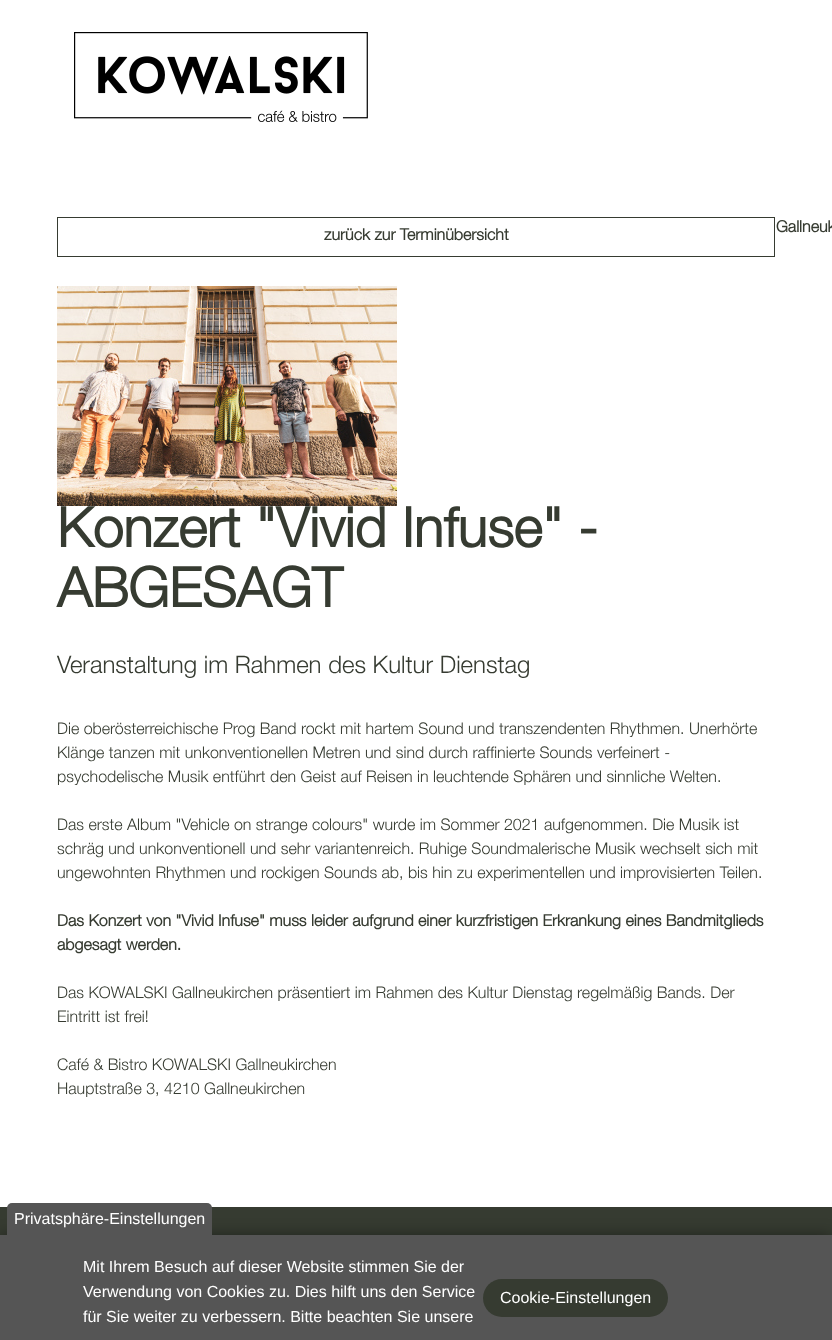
<!DOCTYPE html>
<meta charset="utf-8">
<style>body { margin: 0 } canvas { display: block }</style>
<canvas id="canvas" width="832" height="1340"></canvas>
<script type="module">
  const canvas = document.getElementById("canvas");
  const ctx = canvas.getContext("2d");
  ctx.miterLimit = 4;
  ctx.fontKerning = "normal";
  async function loadImage(src) {
    const img = new Image();
    img.src = src;
    await img.decode();
    return img;
  }

  ctx.fillStyle = "#ffffff";
  ctx.fillRect(0, 0, 832, 1340);
  ctx.drawImage(await loadImage("img1.png"), 74, 32, 294, 90);
  ctx.font = "bold 16px Helvetica Neue";
  ctx.fillStyle = "#363b31";
  ctx.fillText("Gallneuk", 776, 232);
  ctx.font = "bold 55px Helvetica Neue";
  ctx.fillText("Konzert \"Vivid Infuse\" -", 57, 547);
  ctx.fillText("ABGESAGT", 57, 607);
  ctx.font = "300 24px Helvetica Neue";
  ctx.fillText("Veranstaltung im Rahmen des Kultur Dienstag", 57, 673);
  ctx.font = "300 16px Helvetica Neue";
  ctx.fillText("Die oberösterreichische Prog Band rockt mit hartem Sound und transzendenten Rhythmen. Unerhörte", 57, 734);
  ctx.fillText("Klänge tanzen mit unkonventionellen Metren und sind durch raffinierte Sounds verfeinert -", 57, 758);
  ctx.fillText("psychodelische Musik entführt den Geist auf Reisen in leuchtende Sphären und sinnliche Welten.", 57, 782);
  ctx.fillText("Das erste Album \"Vehicle on strange colours\" wurde im Sommer 2021 aufgenommen. Die Musik ist", 57, 830);
  ctx.fillText("schräg und unkonventionell und sehr variantenreich. Ruhige Soundmalerische Musik wechselt sich mit", 57, 854);
  ctx.fillText("ungewohnten Rhythmen und rockigen Sounds ab, bis hin zu experimentellen und improvisierten Teilen.", 57, 878);
  ctx.font = "bold 16px Helvetica Neue";
  ctx.fillText("Das Konzert von \"Vivid Infuse\" muss leider aufgrund einer kurzfristigen Erkrankung eines Bandmitglieds", 57, 926);
  ctx.fillText("abgesagt werden.", 57, 950);
  ctx.font = "300 16px Helvetica Neue";
  ctx.fillText("Das KOWALSKI Gallneukirchen präsentiert im Rahmen des Kultur Dienstag regelmäßig Bands. Der", 57, 998);
  ctx.fillText("Eintritt ist frei!", 57, 1022);
  ctx.fillText("Café & Bistro KOWALSKI Gallneukirchen", 57, 1070);
  ctx.fillText("Hauptstraße 3, 4210 Gallneukirchen", 57, 1094);
  ctx.strokeStyle = "#363b31";
  ctx.strokeRect(57.5, 217.5, 717, 39);
  ctx.font = "bold 16px Helvetica Neue";
  ctx.fillText("zurück zur Terminübersicht", 324, 240);
  ctx.drawImage(await loadImage("img2.png"), 57, 286, 340, 220);
  ctx.fillRect(0, 1207, 832, 28);
  ctx.fillStyle = "rgba(0, 0, 0, 0.4)";
  ctx.filter = "blur(7.5px)";
  ctx.beginPath();
  ctx.rect(0, 1235, 832, 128);
  ctx.fill();
  ctx.filter = "none";
  ctx.fillStyle = "#555555";
  ctx.beginPath();
  ctx.roundRect(7, 1203, 205, 32, [5, 5, 0, 0]);
  ctx.fill();
  ctx.font = "16px Liberation Sans";
  ctx.fillStyle = "#ffffff";
  ctx.fillText("Privatsphäre-Einstellungen", 14, 1224);
  ctx.fillStyle = "#555555";
  ctx.fillRect(0, 1235, 832, 105);
  ctx.fillStyle = "#ffffff";
  ctx.fillText("Mit Ihrem Besuch auf dieser Website stimmen Sie der", 83, 1272);
  ctx.fillText("Verwendung von Cookies zu. Dies hilft uns den Service", 83, 1297);
  ctx.fillText("für Sie weiter zu verbessern. Bitte beachten Sie unsere", 83, 1322);
  ctx.fillStyle = "#363b31";
  ctx.beginPath();
  ctx.roundRect(483, 1279, 185, 38, 19);
  ctx.fill();
  ctx.fillStyle = "#ffffff";
  ctx.fillText("Cookie-Einstellungen", 500, 1303);
</script>
